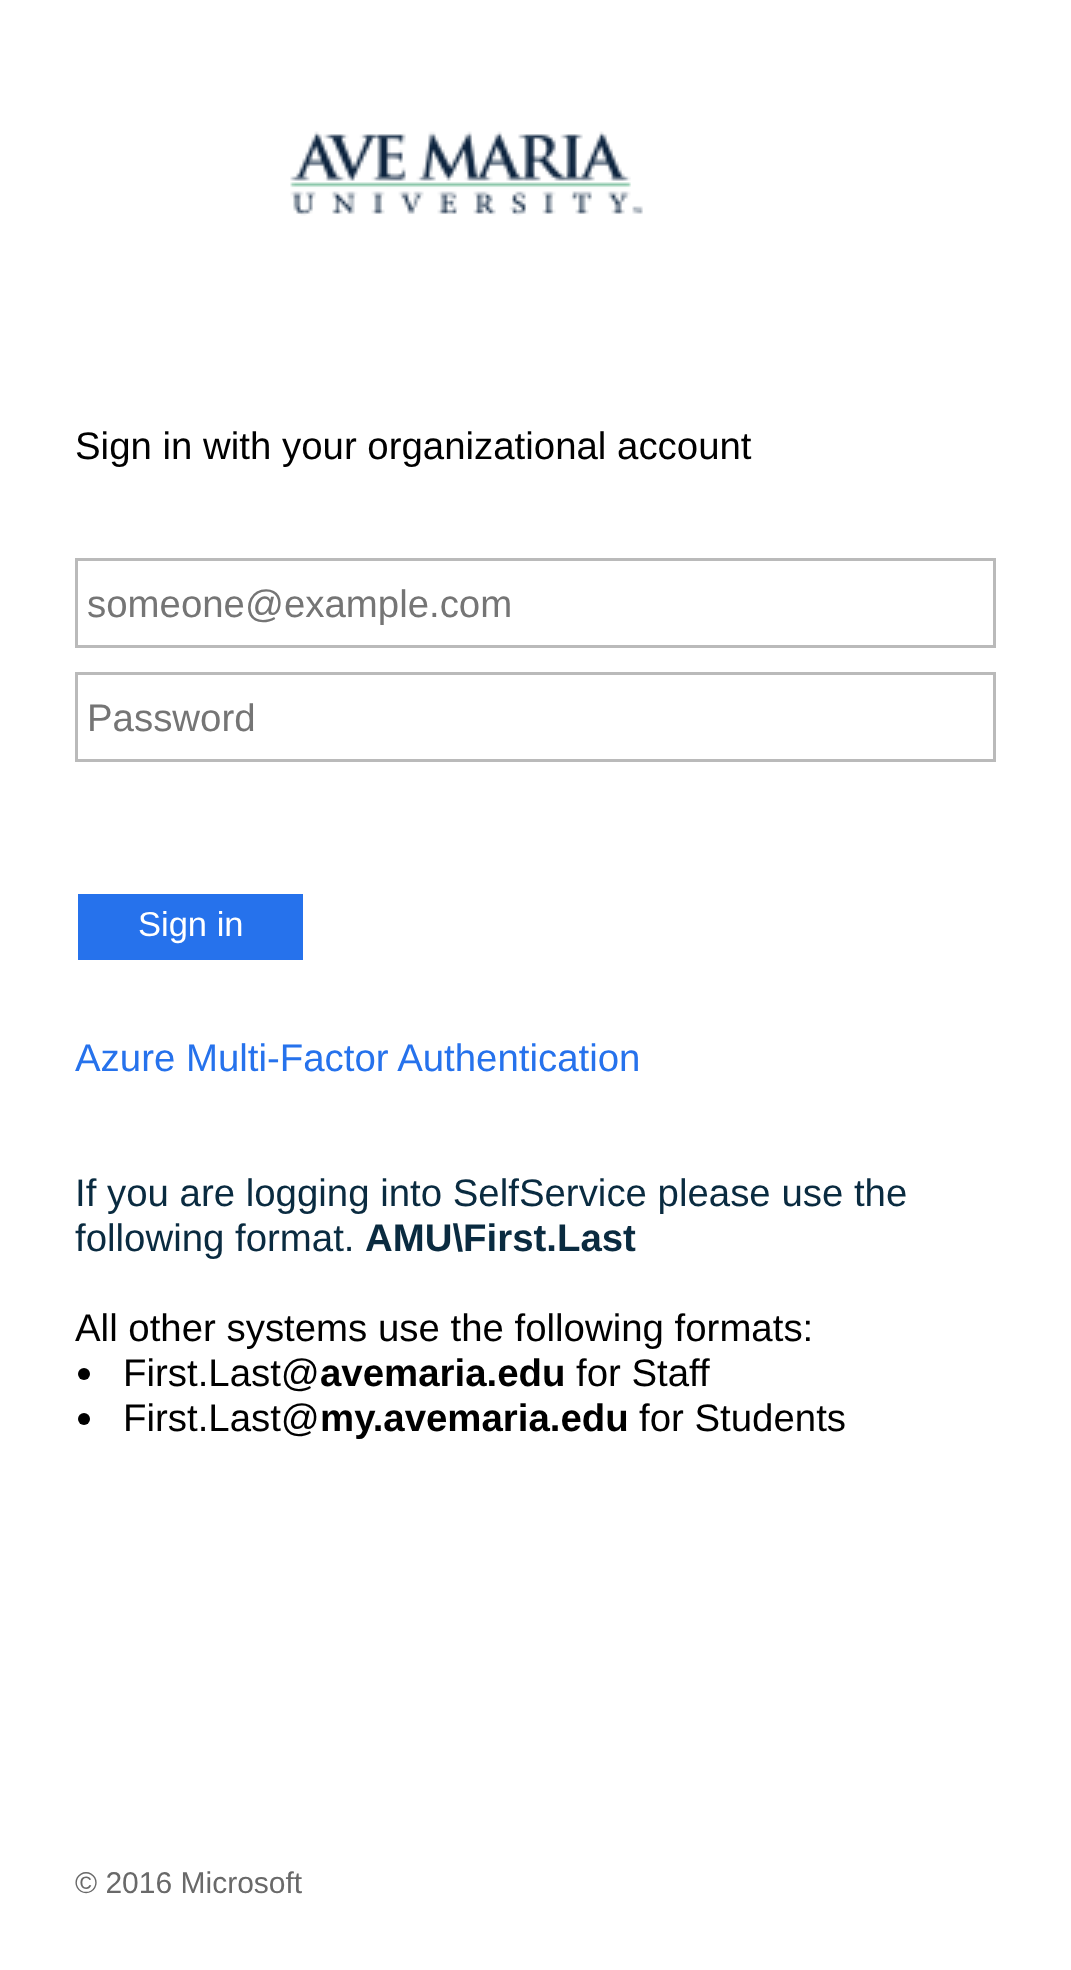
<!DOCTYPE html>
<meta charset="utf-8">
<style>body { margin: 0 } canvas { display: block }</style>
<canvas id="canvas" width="1071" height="1970"></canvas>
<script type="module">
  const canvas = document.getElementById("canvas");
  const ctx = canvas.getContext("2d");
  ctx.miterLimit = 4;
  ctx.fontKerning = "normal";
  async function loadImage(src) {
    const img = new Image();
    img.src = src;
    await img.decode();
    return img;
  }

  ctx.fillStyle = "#ffffff";
  ctx.fillRect(0, 0, 1071, 1970);
  ctx.drawImage(await loadImage("img1.png"), 290, 131, 353, 85);
  ctx.font = "38.4px Liberation Sans";
  ctx.fillStyle = "#000000";
  ctx.fillText("Sign in with your organizational account", 75, 459);
  ctx.strokeStyle = "#bababa";
  ctx.lineWidth = 3;
  ctx.strokeRect(76.5, 559.5, 918, 87);
  ctx.fillStyle = "#757575";
  ctx.fillText("someone@example.com", 87, 617);
  ctx.strokeRect(76.5, 673.5, 918, 87);
  ctx.fillText("Password", 87, 731);
  ctx.fillStyle = "#2672ec";
  ctx.fillRect(78, 894, 225, 66);
  ctx.font = "34.5px Liberation Sans";
  ctx.fillStyle = "#ffffff";
  ctx.fillText("Sign in", 138, 936);
  ctx.font = "38.4px Liberation Sans";
  ctx.fillStyle = "#2672ec";
  ctx.fillText("Azure Multi-Factor Authentication", 75, 1071);
  ctx.fillStyle = "#0a2b40";
  ctx.fillText("If you are logging into SelfService please use the", 75, 1206);
  ctx.fillText("following format.", 75, 1251);
  ctx.font = "bold 38.4px Liberation Sans";
  ctx.fillText("AMU\\First.Last", 365, 1251);
  ctx.font = "38.4px Liberation Sans";
  ctx.fillStyle = "#000000";
  ctx.fillText("All other systems use the following formats:", 75, 1341);
  ctx.beginPath();
  ctx.arc(84, 1374, 6, 0, Math.PI * 2);
  ctx.fill();
  ctx.fillText("First.Last@", 123, 1386);
  ctx.font = "bold 38.4px Liberation Sans";
  ctx.fillText("avemaria.edu", 320, 1386);
  ctx.font = "38.4px Liberation Sans";
  ctx.fillText("for Staff", 576, 1386);
  ctx.beginPath();
  ctx.arc(84, 1419, 6, 0, Math.PI * 2);
  ctx.fill();
  ctx.fillText("First.Last@", 123, 1431);
  ctx.font = "bold 38.4px Liberation Sans";
  ctx.fillText("my.avemaria.edu", 320, 1431);
  ctx.font = "38.4px Liberation Sans";
  ctx.fillText("for Students", 639, 1431);
  ctx.font = "30px Liberation Sans";
  ctx.fillStyle = "#696969";
  ctx.fillText("© 2016 Microsoft", 75, 1893);
</script>
